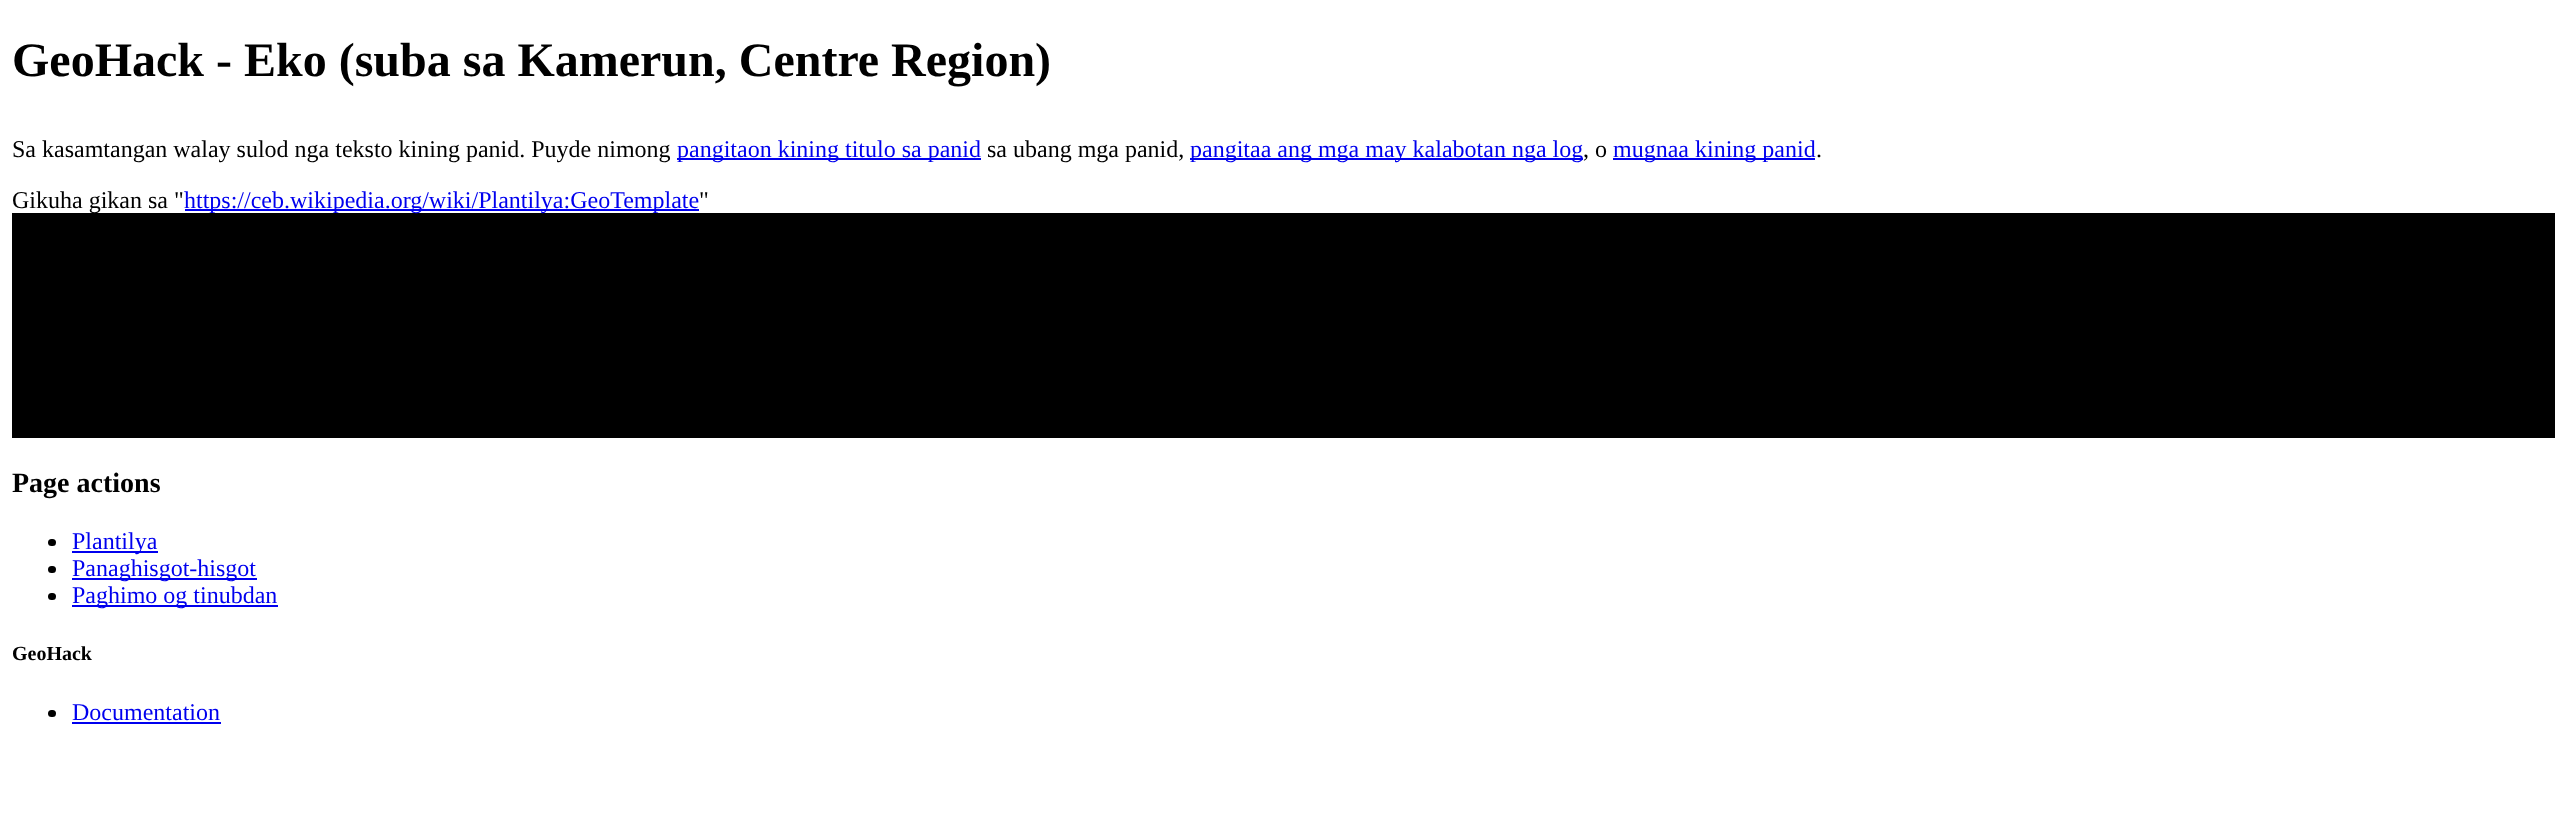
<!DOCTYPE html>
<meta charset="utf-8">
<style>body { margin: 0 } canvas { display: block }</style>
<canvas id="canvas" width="2566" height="813"></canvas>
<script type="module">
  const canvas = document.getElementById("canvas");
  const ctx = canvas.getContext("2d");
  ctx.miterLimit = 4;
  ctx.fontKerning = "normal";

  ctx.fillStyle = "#ffffff";
  ctx.fillRect(0, 0, 2566, 813);
  ctx.font = "bold 48px Liberation Serif";
  ctx.fillStyle = "#000000";
  ctx.fillText("GeoHack - Eko (suba sa Kamerun, Centre Region)", 12, 76);
  ctx.font = "24px Liberation Serif";
  ctx.fillText("Sa kasamtangan walay sulod nga teksto kining panid. Puyde nimong", 12, 157);
  ctx.fillStyle = "#0000ee";
  ctx.fillRect(677, 158, 304, 2);
  ctx.fillText("pangitaon kining titulo sa panid", 677, 157);
  ctx.fillStyle = "#000000";
  ctx.fillText("sa ubang mga panid,", 987, 157);
  ctx.fillStyle = "#0000ee";
  ctx.fillRect(1190, 158, 393, 2);
  ctx.fillText("pangitaa ang mga may kalabotan nga log", 1190, 157);
  ctx.fillStyle = "#000000";
  ctx.fillText(", o", 1583, 157);
  ctx.fillStyle = "#0000ee";
  ctx.fillRect(1613, 158, 202, 2);
  ctx.fillText("mugnaa kining panid", 1613, 157);
  ctx.fillStyle = "#000000";
  ctx.fillText(".", 1816, 157);
  ctx.fillRect(12, 213, 2543, 225);
  ctx.fillText("Gikuha gikan sa \"", 12, 208);
  ctx.fillStyle = "#0000ee";
  ctx.fillRect(185, 209, 514, 2);
  ctx.fillText("https://ceb.wikipedia.org/wiki/Plantilya:GeoTemplate", 184, 208);
  ctx.fillStyle = "#000000";
  ctx.fillText("\"", 699, 208);
  ctx.font = "bold 28px Liberation Serif";
  ctx.fillText("Page actions", 12, 492);
  ctx.beginPath();
  ctx.roundRect(48, 539, 8, 7, 3.5);
  ctx.fill();
  ctx.fillStyle = "#0000ee";
  ctx.fillRect(72, 551, 86, 2);
  ctx.font = "24px Liberation Serif";
  ctx.fillText("Plantilya", 72, 549);
  ctx.fillStyle = "#000000";
  ctx.beginPath();
  ctx.roundRect(48, 566, 8, 7, 3.5);
  ctx.fill();
  ctx.fillStyle = "#0000ee";
  ctx.fillRect(72, 578, 185, 2);
  ctx.fillText("Panaghisgot-hisgot", 72, 576);
  ctx.fillStyle = "#000000";
  ctx.beginPath();
  ctx.roundRect(48, 593, 8, 7, 3.5);
  ctx.fill();
  ctx.fillStyle = "#0000ee";
  ctx.fillRect(72, 605, 206, 2);
  ctx.fillText("Paghimo og tinubdan", 72, 603);
  ctx.font = "bold 20px Liberation Serif";
  ctx.fillStyle = "#000000";
  ctx.fillText("GeoHack", 12, 660);
  ctx.beginPath();
  ctx.roundRect(48, 710, 8, 7, 3.5);
  ctx.fill();
  ctx.font = "24px Liberation Serif";
  ctx.fillStyle = "#0000ee";
  ctx.fillText("Documentation", 72, 720);
  ctx.fillRect(72, 722, 149, 2);
</script>
